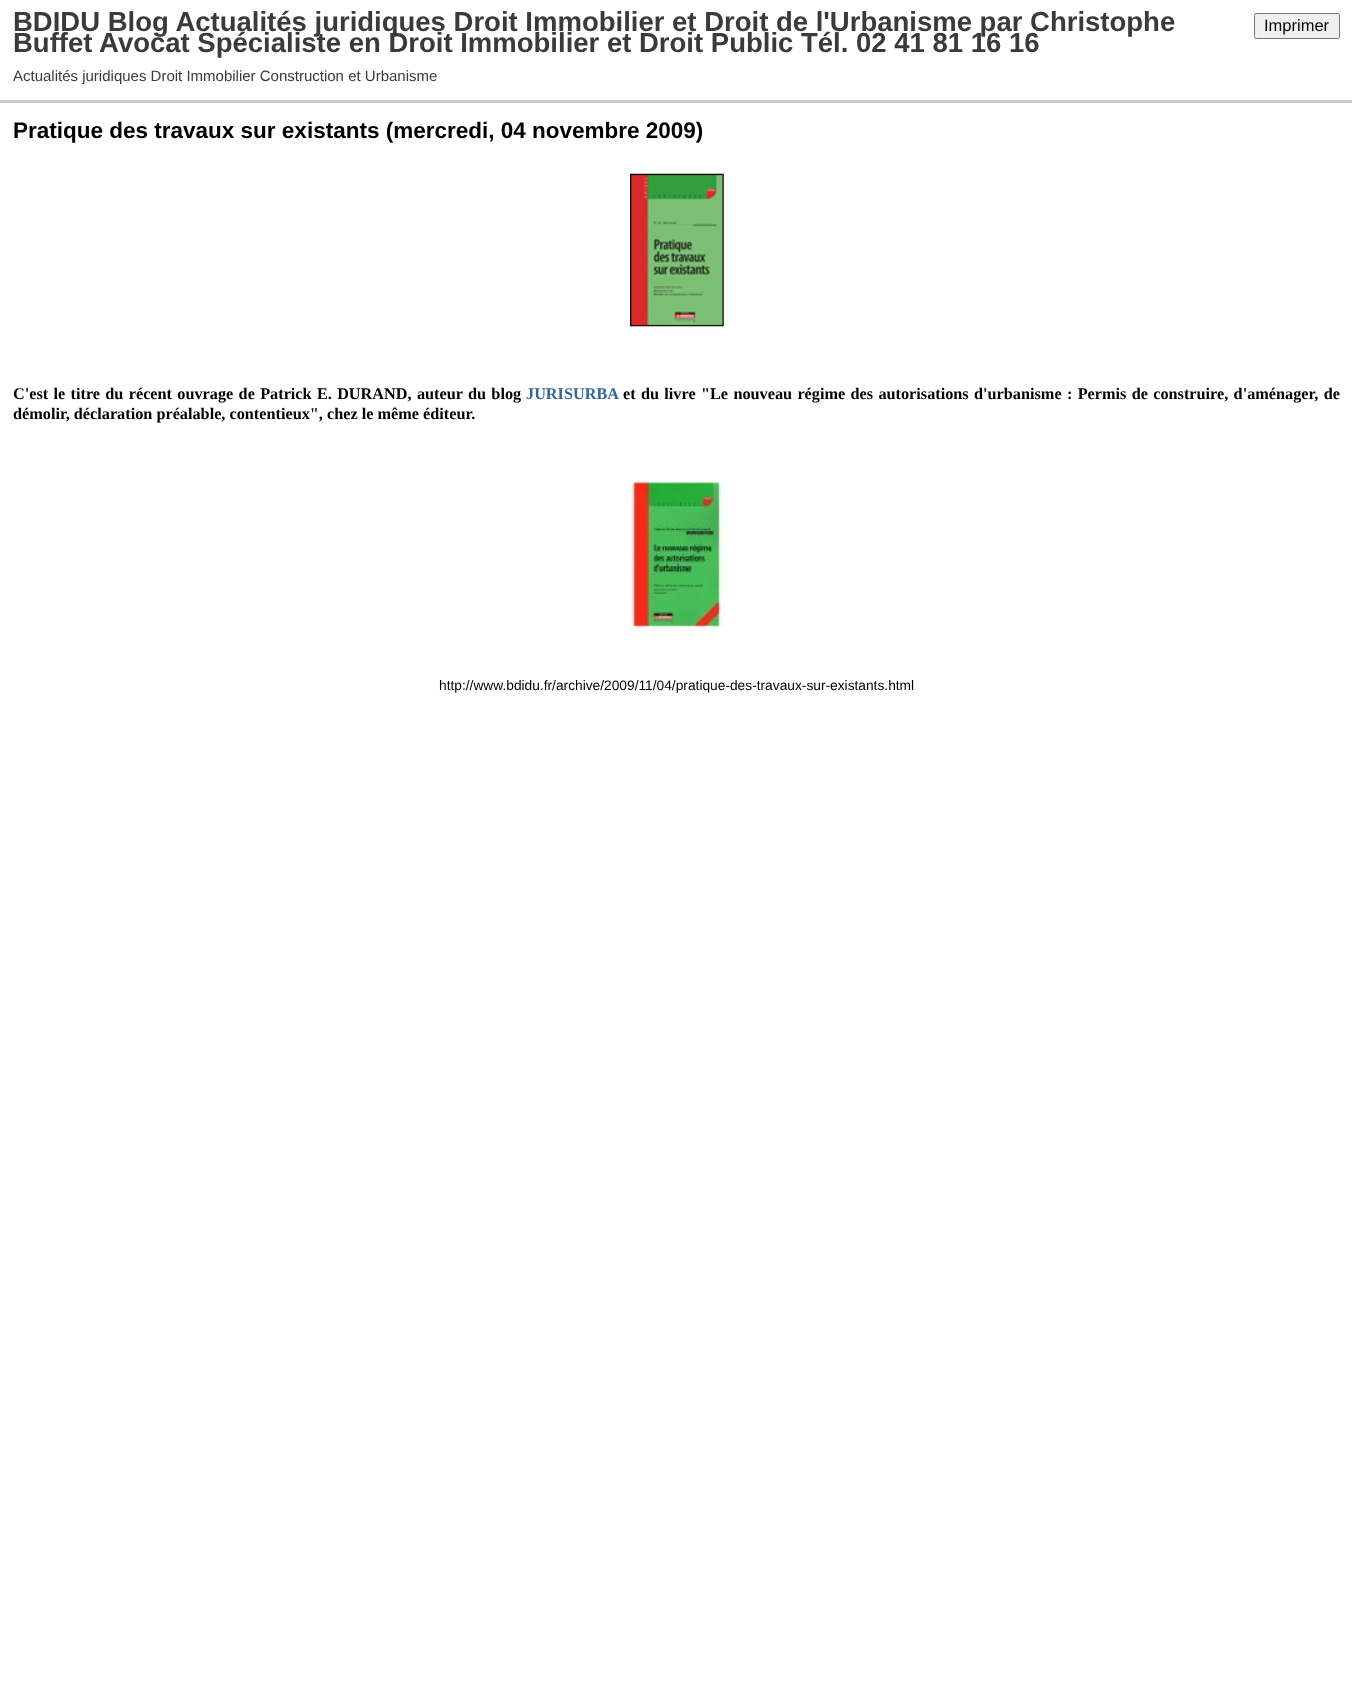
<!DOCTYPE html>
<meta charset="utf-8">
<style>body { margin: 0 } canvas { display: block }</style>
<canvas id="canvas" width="1352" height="1701"></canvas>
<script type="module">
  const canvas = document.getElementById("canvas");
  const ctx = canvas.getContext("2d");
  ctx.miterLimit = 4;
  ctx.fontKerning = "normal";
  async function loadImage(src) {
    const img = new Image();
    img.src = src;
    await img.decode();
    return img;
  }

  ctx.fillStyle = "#ffffff";
  ctx.fillRect(0, 0, 1352, 1701);
  ctx.fillStyle = "#cccccc";
  ctx.fillRect(0, 100, 1352, 3);
  ctx.font = "bold 27.5px Liberation Sans";
  ctx.fillStyle = "#3a3a3a";
  ctx.fillText("BDIDU Blog Actualités juridiques Droit Immobilier et Droit de l'Urbanisme par Christophe", 13, 31);
  ctx.fillText("Buffet Avocat Spécialiste en Droit Immobilier et Droit Public Tél. 02 41 81 16 16", 13, 52);
  ctx.fillStyle = "#efefef";
  ctx.beginPath();
  ctx.roundRect(1254.5, 13.5, 85, 25, 2);
  ctx.fill();
  ctx.strokeStyle = "#767676";
  ctx.stroke();
  ctx.font = "16.5px Liberation Sans";
  ctx.fillStyle = "#000000";
  ctx.fillText("Imprimer", 1264, 31);
  ctx.font = "15px Liberation Sans";
  ctx.fillStyle = "#3a3a3a";
  ctx.fillText("Actualités juridiques Droit Immobilier Construction et Urbanisme", 13, 81);
  ctx.font = "bold 22.5px Liberation Sans";
  ctx.fillStyle = "#000000";
  ctx.fillText("Pratique des travaux sur existants (mercredi, 04 novembre 2009)", 13, 138);
  ctx.drawImage(await loadImage("img1.png"), 630, 173, 94, 154);
  ctx.wordSpacing = "1.25px";
  ctx.font = "bold 16.25px Liberation Serif";
  ctx.fillText("C'est le titre du récent ouvrage de Patrick E. DURAND, auteur du blog", 13, 399);
  ctx.wordSpacing = "0px";
  ctx.fillStyle = "#336699";
  ctx.fillText("JURISURBA", 526, 399);
  ctx.wordSpacing = "1.25px";
  ctx.fillStyle = "#000000";
  ctx.fillText("et du livre", 623, 399);
  ctx.fillText("\"Le nouveau régime des autorisations d'urbanisme : Permis de construire, d'aménager, de", 701, 399);
  ctx.wordSpacing = "0px";
  ctx.fillText("démolir, déclaration préalable, contentieux\", chez le même éditeur.", 13, 419);
  ctx.drawImage(await loadImage("img2.png"), 625, 482, 100, 145);
  ctx.font = "13.75px Liberation Sans";
  ctx.fillText("http://www.bdidu.fr/archive/2009/11/04/pratique-des-travaux-sur-existants.html", 439, 690);
</script>
